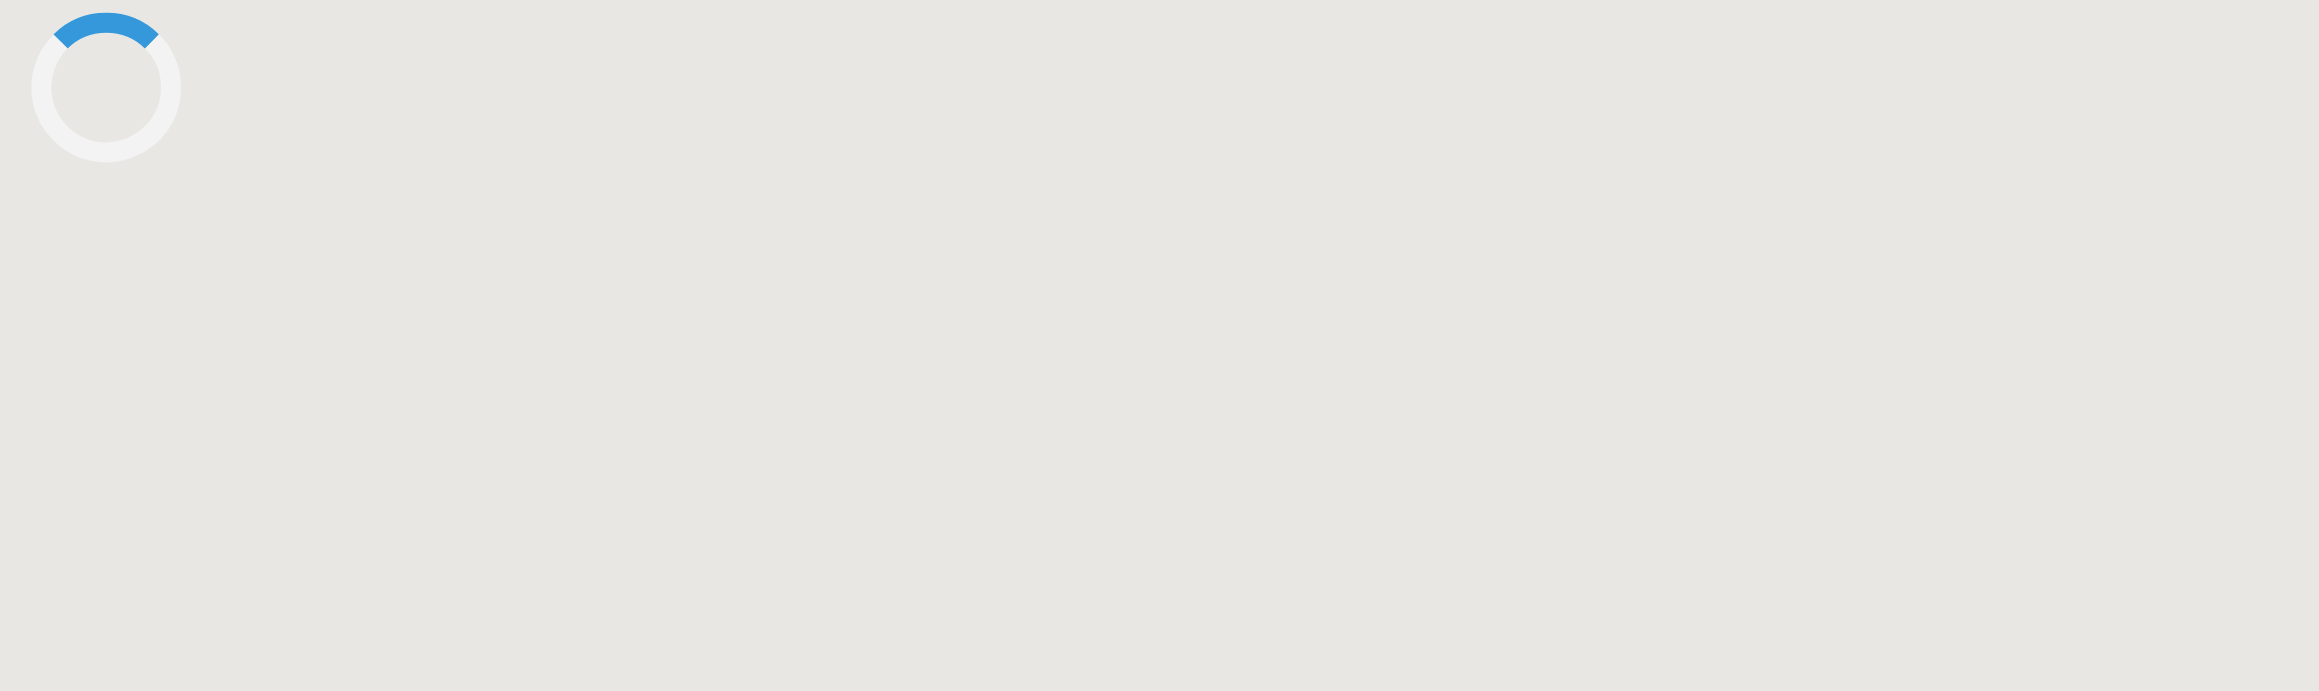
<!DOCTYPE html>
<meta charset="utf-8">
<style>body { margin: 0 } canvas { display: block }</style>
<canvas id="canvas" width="2319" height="691"></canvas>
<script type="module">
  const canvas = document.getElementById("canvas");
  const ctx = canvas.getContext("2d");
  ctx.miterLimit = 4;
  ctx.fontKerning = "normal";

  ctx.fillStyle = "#e9e7e3";
  ctx.fillRect(0, 0, 2319, 691);
  ctx.beginPath();
  ctx.moveTo(60.5, 41.5);
  ctx.bezierCurveTo(85.5, 16.5, 127, 16.5, 152, 41.5);
  ctx.strokeStyle = "#3498db";
  ctx.lineWidth = 20;
  ctx.stroke();
  ctx.beginPath();
  ctx.moveTo(152, 41.5);
  ctx.bezierCurveTo(164.5, 53.5, 171, 70.5, 171, 87.5);
  ctx.bezierCurveTo(171, 145, 101, 174, 60.5, 133.5);
  ctx.bezierCurveTo(51.5, 124.5, 45, 113, 42.5, 100);
  ctx.bezierCurveTo(38.5, 79, 45, 57, 60.5, 41.5);
  ctx.strokeStyle = "#f3f3f3";
  ctx.stroke();
</script>
